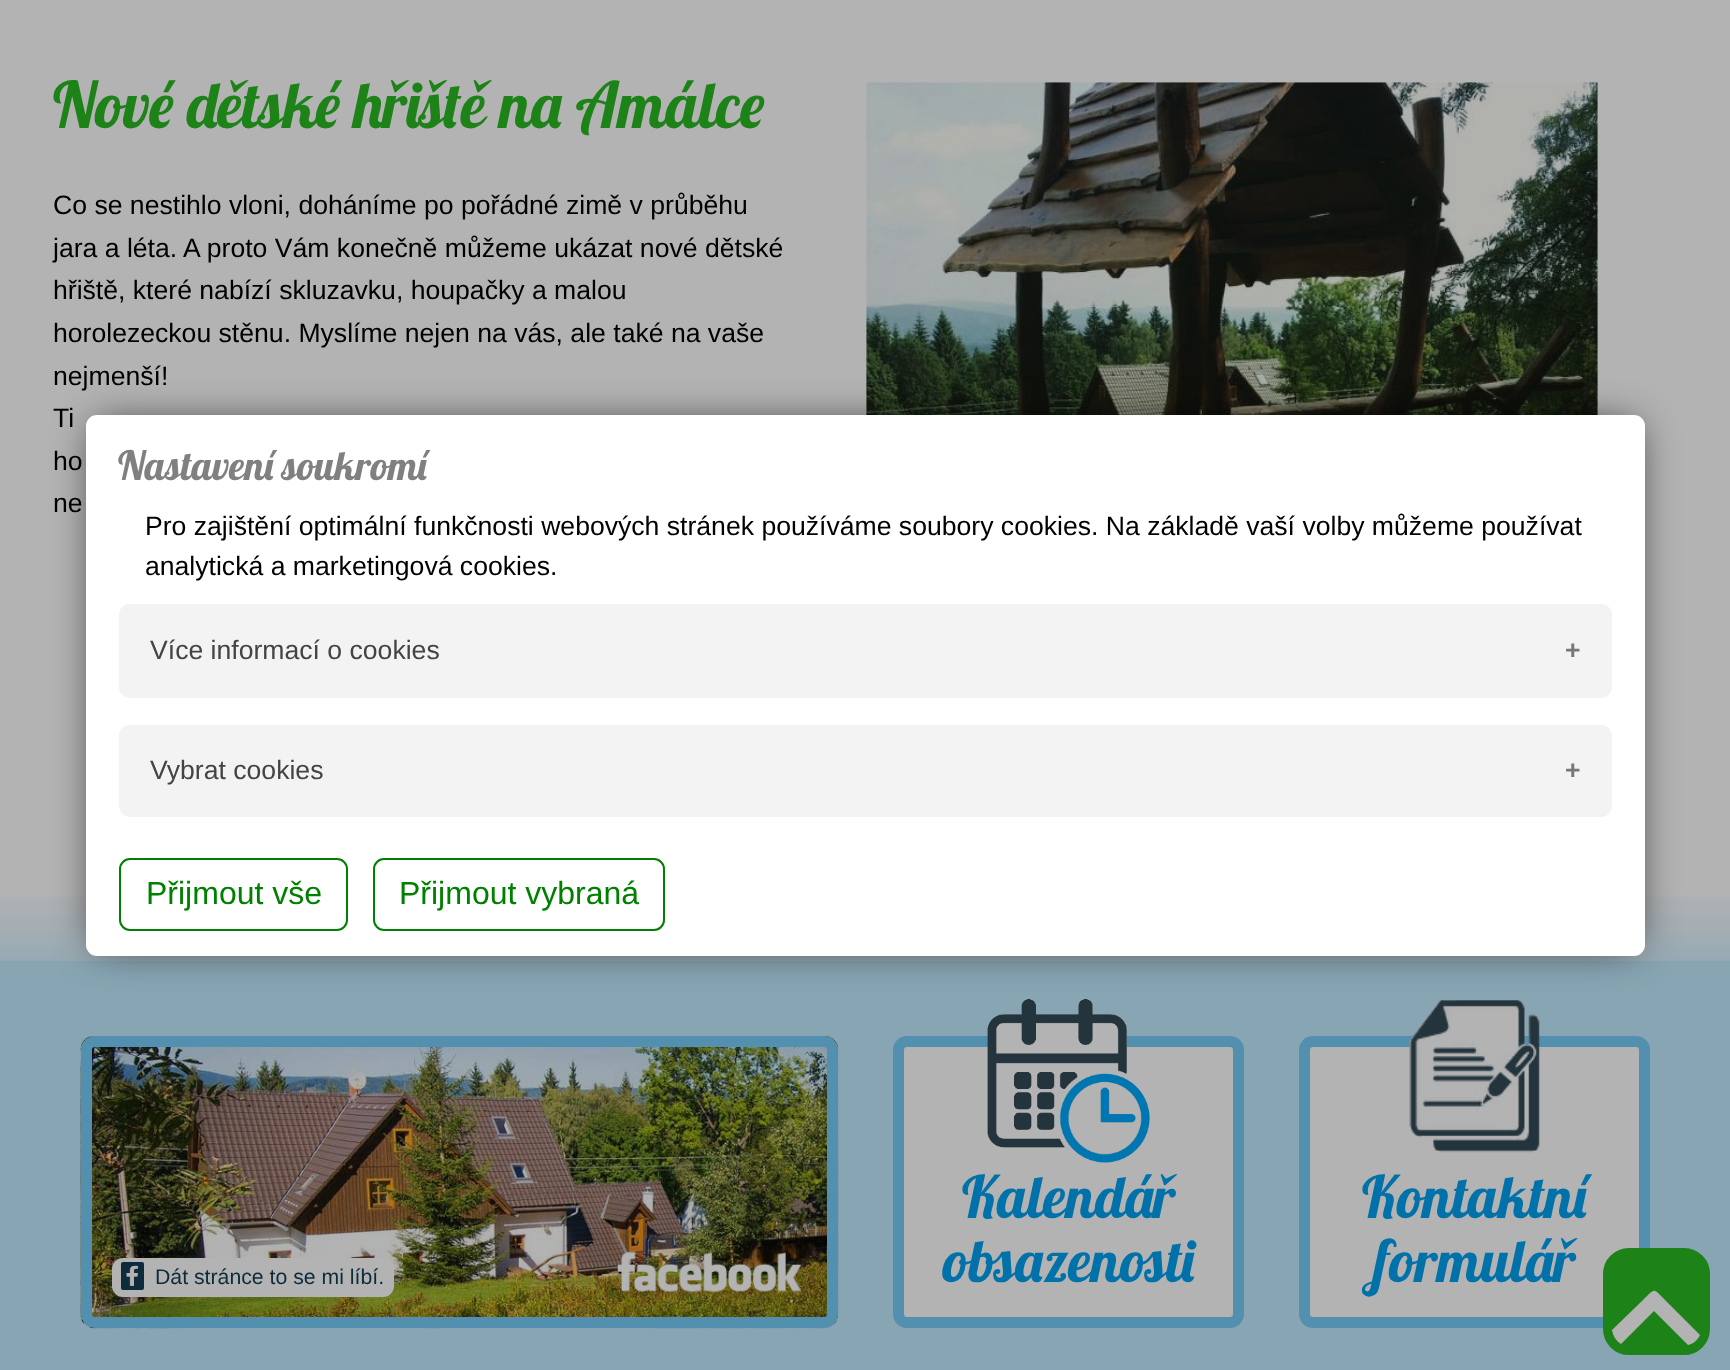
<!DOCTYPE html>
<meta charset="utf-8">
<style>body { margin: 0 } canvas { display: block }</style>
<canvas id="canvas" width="1730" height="1370"></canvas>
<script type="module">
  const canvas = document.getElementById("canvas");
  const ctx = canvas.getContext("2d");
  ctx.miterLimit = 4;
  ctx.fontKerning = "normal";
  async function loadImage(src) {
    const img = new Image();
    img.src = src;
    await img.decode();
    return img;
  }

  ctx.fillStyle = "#b3b3b3";
  ctx.fillRect(0, 0, 1730, 1370);
  ctx.drawImage(await loadImage("img1.png"), 0, 895, 1730, 66);
  ctx.font = "63.8px Lobster";
  ctx.fillStyle = "#1d8318";
  ctx.fillText("Nové dětské hřiště na Amálce", 53, 128);
  ctx.font = "26.6px Liberation Sans";
  ctx.fillStyle = "#000000";
  ctx.fillText("Co se nestihlo vloni, doháníme po pořádné zimě v průběhu", 53, 214);
  ctx.fillText("jara a léta. A proto Vám konečně můžeme ukázat nové dětské", 53, 257);
  ctx.fillText("hřiště, které nabízí skluzavku, houpačky a malou", 53, 299);
  ctx.fillText("horolezeckou stěnu. Myslíme nejen na vás, ale také na vaše", 53, 342);
  ctx.fillText("nejmenší!", 53, 385);
  ctx.fillText("Ti", 53, 427);
  ctx.fillText("ho", 53, 470);
  ctx.fillText("ne", 53, 512);
  ctx.drawImage(await loadImage("img2.png"), 866, 82, 732, 333);
  ctx.fillStyle = "#88a5b3";
  ctx.fillRect(0, 961, 1730, 409);
  ctx.drawImage(await loadImage("img3.png"), 80, 1036, 759, 293);
  ctx.beginPath();
  ctx.roundRect(86.5, 1041.5, 746, 281, 8.5);
  ctx.strokeStyle = "#5390af";
  ctx.lineWidth = 11;
  ctx.stroke();
  ctx.fillStyle = "#b3b3b3";
  ctx.beginPath();
  ctx.roundRect(112, 1258, 282, 39, 11);
  ctx.fill();
  ctx.fillStyle = "#0d2b3a";
  ctx.beginPath();
  ctx.roundRect(121, 1262, 23, 28, 2);
  ctx.fill();
  ctx.drawImage(await loadImage("img4.png"), 126, 1265, 13, 21);
  ctx.font = "21.25px Liberation Sans";
  ctx.fillText("Dát stránce to se mi líbí.", 155, 1284);
  ctx.drawImage(await loadImage("img5.png"), 617, 1251, 185, 41);
  ctx.fillStyle = "#b3b3b3";
  ctx.beginPath();
  ctx.roundRect(898.5, 1041.5, 340, 281, 8.5);
  ctx.fill();
  ctx.stroke();
  ctx.drawImage(await loadImage("img6.png"), 987, 999, 163, 164);
  ctx.font = "58.5px Lobster";
  ctx.fillStyle = "#0071a9";
  ctx.fillText("Kalendář", 962, 1218);
  ctx.fillText("obsazenosti", 943, 1282);
  ctx.fillStyle = "#b3b3b3";
  ctx.beginPath();
  ctx.roundRect(1304.5, 1041.5, 340, 281, 8.5);
  ctx.fill();
  ctx.stroke();
  ctx.drawImage(await loadImage("img7.png"), 1409, 1000, 131, 153);
  ctx.fillStyle = "#0071a9";
  ctx.fillText("Kontaktní", 1362, 1218);
  ctx.fillText("formulář", 1374, 1282);
  ctx.fillStyle = "#1d8318";
  ctx.beginPath();
  ctx.roundRect(1607.5, 1252.5, 98, 98, 21.5);
  ctx.fill();
  ctx.strokeStyle = "#1d8318";
  ctx.lineWidth = 9;
  ctx.stroke();
  ctx.fillStyle = "#b3b3b3";
  ctx.beginPath();
  ctx.moveTo(1621, 1344);
  ctx.bezierCurveTo(1616, 1341, 1613, 1336, 1612, 1330);
  ctx.lineTo(1642, 1301);
  ctx.bezierCurveTo(1656, 1288, 1652, 1287, 1666, 1301);
  ctx.lineTo(1700, 1335);
  ctx.bezierCurveTo(1698, 1340, 1693, 1344, 1688, 1345);
  ctx.lineTo(1654, 1311);
  ctx.closePath();
  ctx.fill();
  ctx.fillStyle = "rgba(0, 0, 0, 0.75)";
  ctx.filter = "blur(20px)";
  ctx.beginPath();
  ctx.rect(96, 425, 1539, 520);
  ctx.fill();
  ctx.filter = "none";
  ctx.fillStyle = "#ffffff";
  ctx.beginPath();
  ctx.roundRect(86, 415, 1559, 541, 11);
  ctx.fill();
  ctx.font = "40px Lobster";
  ctx.fillStyle = "#808080";
  ctx.fillText("Nastavení soukromí", 118, 480);
  ctx.font = "26.6px Liberation Sans";
  ctx.fillStyle = "#000000";
  ctx.fillText("Pro zajištění optimální funkčnosti webových stránek používáme soubory cookies. Na základě vaší volby můžeme používat", 145, 535);
  ctx.fillText("analytická a marketingová cookies.", 145, 575);
  ctx.fillStyle = "#f3f3f3";
  ctx.beginPath();
  ctx.roundRect(119, 604, 1493, 94, 11);
  ctx.fill();
  ctx.fillStyle = "#444444";
  ctx.fillText("Více informací o cookies", 150, 659);
  ctx.font = "bold 26.6px Liberation Sans";
  ctx.fillStyle = "#777777";
  ctx.fillText("+", 1565, 659);
  ctx.fillStyle = "#f3f3f3";
  ctx.beginPath();
  ctx.roundRect(119, 725, 1493, 92, 11);
  ctx.fill();
  ctx.font = "26.6px Liberation Sans";
  ctx.fillStyle = "#444444";
  ctx.fillText("Vybrat cookies", 150, 779);
  ctx.font = "bold 26.6px Liberation Sans";
  ctx.fillStyle = "#777777";
  ctx.fillText("+", 1565, 779);
  ctx.beginPath();
  ctx.roundRect(120, 859, 227, 71, 10);
  ctx.strokeStyle = "#008000";
  ctx.lineWidth = 2;
  ctx.stroke();
  ctx.font = "32px Liberation Sans";
  ctx.fillStyle = "#008000";
  ctx.fillText("Přijmout vše", 146, 904);
  ctx.beginPath();
  ctx.roundRect(374, 859, 290, 71, 10);
  ctx.stroke();
  ctx.fillText("Přijmout vybraná", 399, 904);
</script>
